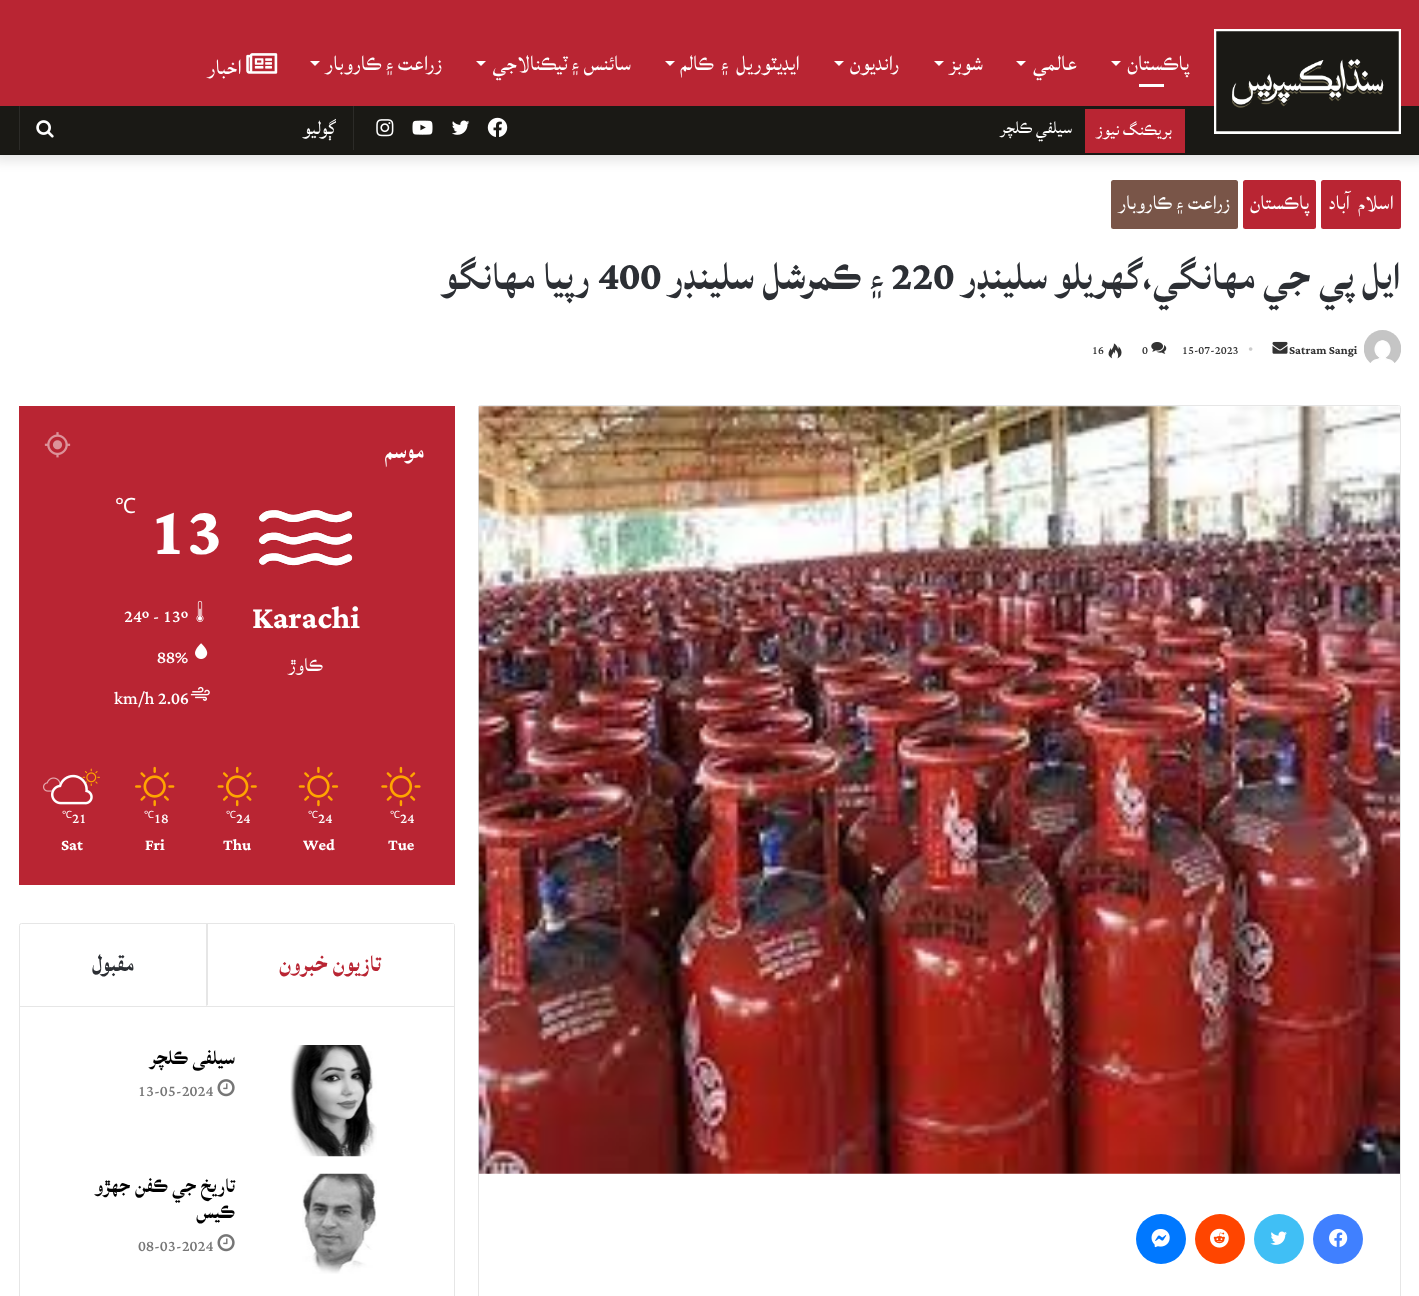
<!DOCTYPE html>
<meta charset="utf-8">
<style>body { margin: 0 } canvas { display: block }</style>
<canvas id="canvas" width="1419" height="1296"></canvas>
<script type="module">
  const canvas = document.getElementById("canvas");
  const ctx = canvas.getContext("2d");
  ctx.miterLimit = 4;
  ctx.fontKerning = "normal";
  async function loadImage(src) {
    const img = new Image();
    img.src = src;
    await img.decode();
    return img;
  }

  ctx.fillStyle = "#ffffff";
  ctx.fillRect(0, 0, 1419, 1296);
  ctx.fillStyle = "rgba(0, 0, 0, 0.1)";
  ctx.filter = "blur(6px)";
  ctx.beginPath();
  ctx.rect(-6, -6, 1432, 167);
  ctx.fill();
  ctx.filter = "none";
  ctx.fillStyle = "#b92533";
  ctx.fillRect(0, 0, 1419, 106);
  ctx.fillStyle = "#1a1915";
  ctx.fillRect(0, 106, 1419, 48);
  ctx.strokeStyle = "#ffffff";
  ctx.lineWidth = 3;
  ctx.strokeRect(1215.5, 30.5, 184, 102);
  ctx.drawImage(await loadImage("img1.png"), 1216, 31, 183, 101);
  ctx.direction = "rtl";
  ctx.font = "27.5px Lateef";
  ctx.fillStyle = "#ffffff";
  ctx.fillText("پاڪستان", 1189, 70);
  ctx.beginPath();
  ctx.moveTo(1111, 61);
  ctx.lineTo(1121, 61);
  ctx.lineTo(1116, 66);
  ctx.closePath();
  ctx.fill();
  ctx.fillRect(1139, 84, 25, 3);
  ctx.fillText("عالمي", 1077, 70);
  ctx.beginPath();
  ctx.moveTo(1016, 61);
  ctx.lineTo(1026, 61);
  ctx.lineTo(1021, 66);
  ctx.closePath();
  ctx.fill();
  ctx.fillText("شوبز", 983, 70);
  ctx.beginPath();
  ctx.moveTo(934, 61);
  ctx.lineTo(944, 61);
  ctx.lineTo(939, 66);
  ctx.closePath();
  ctx.fill();
  ctx.fillText("رانديون", 899, 70);
  ctx.beginPath();
  ctx.moveTo(834, 61);
  ctx.lineTo(844, 61);
  ctx.lineTo(839, 66);
  ctx.closePath();
  ctx.fill();
  ctx.wordSpacing = "3px";
  ctx.fillText("ايڊيٽوريل ۽ ڪالم", 800, 70);
  ctx.beginPath();
  ctx.moveTo(665, 61);
  ctx.lineTo(675, 61);
  ctx.lineTo(670, 66);
  ctx.closePath();
  ctx.fill();
  ctx.wordSpacing = "0px";
  ctx.fillText("سائنس ۽ ٽيڪنالاجي", 631, 70);
  ctx.beginPath();
  ctx.moveTo(476, 61);
  ctx.lineTo(486, 61);
  ctx.lineTo(481, 66);
  ctx.closePath();
  ctx.fill();
  ctx.fillText("زراعت ۽ ڪاروبار", 442, 70);
  ctx.beginPath();
  ctx.moveTo(310, 61);
  ctx.lineTo(320, 61);
  ctx.lineTo(315, 66);
  ctx.closePath();
  ctx.fill();
  ctx.drawImage(await loadImage("img2.png"), 246, 53, 32, 21);
  ctx.fillText("اخبار", 242, 74);
  ctx.fillStyle = "#171713";
  ctx.fillRect(0, 154, 1419, 1);
  ctx.fillStyle = "#b92533";
  ctx.fillRect(1085, 109, 100, 44);
  ctx.font = "22.5px Lateef";
  ctx.fillStyle = "#ffffff";
  ctx.fillText("بريڪنگ نيوز", 1172, 135);
  ctx.fillText("سيلفي ڪلچر", 1072, 133);
  ctx.drawImage(await loadImage("img3.png"), 487, 117, 21, 20);
  ctx.drawImage(await loadImage("img4.png"), 452, 120, 18, 15);
  ctx.drawImage(await loadImage("img5.png"), 412, 120, 21, 15);
  ctx.drawImage(await loadImage("img6.png"), 376, 119, 18, 18);
  ctx.fillStyle = "#2c2b28";
  ctx.fillRect(353, 106, 1, 44);
  ctx.fillRect(19, 106, 1, 44);
  ctx.save();
  ctx.beginPath();
  ctx.rect(64, 110, 272, 36);
  ctx.clip();
  ctx.font = "25px Lateef";
  ctx.fillStyle = "#ffffff";
  ctx.fillText("ڳوليو", 336, 134);
  ctx.restore();
  ctx.drawImage(await loadImage("img7.png"), 36, 120, 18, 18);
  ctx.fillStyle = "#b92533";
  ctx.beginPath();
  ctx.roundRect(1321, 180, 80, 49, 2.5);
  ctx.fill();
  ctx.wordSpacing = "4px";
  ctx.font = "26.25px Lateef";
  ctx.fillStyle = "#ffffff";
  ctx.fillText("اسلام آباد", 1394, 209);
  ctx.fillStyle = "#b92533";
  ctx.beginPath();
  ctx.roundRect(1243, 180, 73, 49, 2.5);
  ctx.fill();
  ctx.wordSpacing = "0px";
  ctx.fillStyle = "#ffffff";
  ctx.fillText("پاڪستان", 1309, 209);
  ctx.fillStyle = "#795548";
  ctx.beginPath();
  ctx.roundRect(1111, 180, 127, 49, 2.5);
  ctx.fill();
  ctx.fillStyle = "#ffffff";
  ctx.fillText("زراعت ۽ ڪاروبار", 1230, 209);
  ctx.font = "bold 51.25px Lateef";
  ctx.fillStyle = "#2c2f34";
  ctx.fillText("ايل پي جي مهانگي،گهريلو سلينڊر", 1401, 289);
  ctx.direction = "ltr";
  ctx.fillText("220", 891, 289);
  ctx.direction = "rtl";
  ctx.fillText("۽ ڪمرشل سلينڊر", 884, 289);
  ctx.direction = "ltr";
  ctx.fillText("400", 598, 289);
  ctx.direction = "rtl";
  ctx.fillText("رپيا مهانگو", 590, 289);
  ctx.drawImage(await loadImage("img8.png"), 1364, 330, 37, 33);
  ctx.direction = "ltr";
  ctx.font = "bold 15px Lateef";
  ctx.fillStyle = "#333333";
  ctx.fillText("Satram Sangi", 1289, 354);
  ctx.drawImage(await loadImage("img9.png"), 1272, 341, 16, 13);
  ctx.font = "15px Liberation Serif";
  ctx.fillStyle = "#cccccc";
  ctx.fillText("•", 1248, 354);
  ctx.font = "15px Lateef";
  ctx.fillStyle = "#333333";
  ctx.fillText("15-07-2023", 1182, 354);
  ctx.drawImage(await loadImage("img10.png"), 1151, 342, 16, 12);
  ctx.fillText("0", 1142, 354);
  ctx.drawImage(await loadImage("img11.png"), 1108, 343, 14, 16);
  ctx.fillText("16", 1092, 354);
  ctx.beginPath();
  ctx.roundRect(478.5, 405.5, 922, 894, 2);
  ctx.strokeStyle = "#e6e6e6";
  ctx.lineWidth = 1;
  ctx.stroke();
  ctx.drawImage(await loadImage("img12.png"), 478, 406, 922, 768);
  ctx.fillStyle = "#4080ff";
  ctx.beginPath();
  ctx.arc(1338, 1239, 25, 0, Math.PI * 2);
  ctx.fill();
  ctx.drawImage(await loadImage("img13.png"), 1329, 1229, 19, 18);
  ctx.fillStyle = "#40bff5";
  ctx.beginPath();
  ctx.arc(1279, 1239, 25, 0, Math.PI * 2);
  ctx.fill();
  ctx.drawImage(await loadImage("img14.png"), 1270, 1231, 17, 14);
  ctx.fillStyle = "#ff4500";
  ctx.beginPath();
  ctx.arc(1220, 1239, 25, 0, Math.PI * 2);
  ctx.fill();
  ctx.drawImage(await loadImage("img15.png"), 1210, 1228, 19, 20);
  ctx.fillStyle = "#0078ff";
  ctx.beginPath();
  ctx.arc(1161, 1239, 25, 0, Math.PI * 2);
  ctx.fill();
  ctx.drawImage(await loadImage("img16.png"), 1151, 1229, 19, 19);
  ctx.fillStyle = "#b92533";
  ctx.fillRect(19, 406, 436, 479);
  ctx.direction = "rtl";
  ctx.font = "bold 30px Lateef";
  ctx.fillStyle = "#ffffff";
  ctx.fillText("موسم", 424, 458);
  ctx.drawImage(await loadImage("img17.png"), 44, 432, 27, 26);
  ctx.drawImage(await loadImage("img18.png"), 259, 510, 94, 56);
  ctx.drawImage(await loadImage("img19.png"), 259, 510, 94, 56);
  ctx.direction = "ltr";
  ctx.font = "bold 40px Lateef";
  ctx.fillText("Karachi", 252, 628);
  ctx.direction = "rtl";
  ctx.font = "25px Lateef";
  ctx.fillText("ڪاوڙ", 323, 671);
  ctx.direction = "ltr";
  ctx.font = "21px Noto Sans";
  ctx.fillText("℃", 115, 513);
  ctx.font = "bold 88px Lateef";
  ctx.fillText("13", 150, 554);
  ctx.drawImage(await loadImage("img20.png"), 196, 600, 8, 22);
  ctx.font = "22.5px Lateef";
  ctx.fillText("24º - 13º", 124, 622);
  ctx.drawImage(await loadImage("img21.png"), 195, 643, 13, 16);
  ctx.fillText("88%", 157, 663);
  ctx.drawImage(await loadImage("img22.png"), 190, 686, 20, 15);
  ctx.fillText("km/h 2.06", 114, 704);
  ctx.drawImage(await loadImage("img23.png"), 381, 766, 40, 41);
  ctx.font = "18px Lateef";
  ctx.fillText("24", 400, 823);
  ctx.font = "10px Noto Sans";
  ctx.fillText("℃", 390, 818);
  ctx.font = "bold 20px Lateef";
  ctx.fillText("Tue", 388, 850);
  ctx.drawImage(await loadImage("img24.png"), 298, 766, 41, 41);
  ctx.font = "18px Lateef";
  ctx.fillText("24", 318, 823);
  ctx.font = "10px Noto Sans";
  ctx.fillText("℃", 308, 818);
  ctx.font = "bold 20px Lateef";
  ctx.fillText("Wed", 303, 850);
  ctx.drawImage(await loadImage("img25.png"), 217, 766, 40, 41);
  ctx.font = "18px Lateef";
  ctx.fillText("24", 236, 823);
  ctx.font = "10px Noto Sans";
  ctx.fillText("℃", 226, 818);
  ctx.font = "bold 20px Lateef";
  ctx.fillText("Thu", 223, 850);
  ctx.drawImage(await loadImage("img26.png"), 135, 766, 40, 41);
  ctx.font = "18px Lateef";
  ctx.fillText("18", 154, 823);
  ctx.font = "10px Noto Sans";
  ctx.fillText("℃", 144, 818);
  ctx.font = "bold 20px Lateef";
  ctx.fillText("Fri", 145, 850);
  ctx.drawImage(await loadImage("img27.png"), 82, 768, 18, 18);
  ctx.drawImage(await loadImage("img29.png"), 43, 777, 18, 15);
  ctx.drawImage(await loadImage("img30.png"), 51, 782, 36, 10);
  ctx.drawImage(await loadImage("img28.png"), 51, 774, 42, 31);
  ctx.font = "18px Lateef";
  ctx.fillText("21", 72, 823);
  ctx.font = "10px Noto Sans";
  ctx.fillText("℃", 62, 818);
  ctx.font = "bold 20px Lateef";
  ctx.fillText("Sat", 61, 850);
  ctx.beginPath();
  ctx.roundRect(19.5, 923.5, 435, 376, 2);
  ctx.stroke();
  ctx.fillStyle = "#e6e6e6";
  ctx.fillRect(20, 1006, 434, 1);
  ctx.fillStyle = "#ffffff";
  ctx.fillRect(453, 924, 1, 1);
  ctx.fillStyle = "#e6e6e6";
  ctx.beginPath();
  ctx.moveTo(206, 1006);
  ctx.lineTo(206, 924);
  ctx.lineTo(208, 924);
  ctx.lineTo(208, 1005);
  ctx.closePath();
  ctx.fill();
  ctx.direction = "rtl";
  ctx.font = "bold 30px Lateef";
  ctx.fillStyle = "#b92533";
  ctx.fillText("تازيون خبرون", 381, 971);
  ctx.fillStyle = "#2c2f34";
  ctx.fillText("مقبول", 134, 971);
  ctx.drawImage(await loadImage("img31.png"), 290, 1045, 87, 112);
  ctx.save();
  ctx.beginPath();
  ctx.rect(58, 1045, 177, 26);
  ctx.clip();
  ctx.font = "bold 26.25px Lateef";
  ctx.fillStyle = "#000000";
  ctx.fillText("سيلفي ڪلچر", 235, 1064);
  ctx.restore();
  ctx.drawImage(await loadImage("img32.png"), 217, 1079, 18, 18);
  ctx.direction = "ltr";
  ctx.font = "20px Lateef";
  ctx.fillStyle = "#767676";
  ctx.fillText("13-05-2024", 138, 1096);
  ctx.drawImage(await loadImage("img33.png"), 302, 1173, 75, 101);
  ctx.direction = "rtl";
  ctx.font = "bold 26.25px Lateef";
  ctx.fillStyle = "#000000";
  ctx.fillText("تاريخ جي ڪفن جھڙو", 235, 1192);
  ctx.fillText("ڪيس", 235, 1218);
  ctx.drawImage(await loadImage("img32.png"), 217, 1234, 18, 18);
  ctx.direction = "ltr";
  ctx.font = "20px Lateef";
  ctx.fillStyle = "#767676";
  ctx.fillText("08-03-2024", 138, 1251);
</script>
